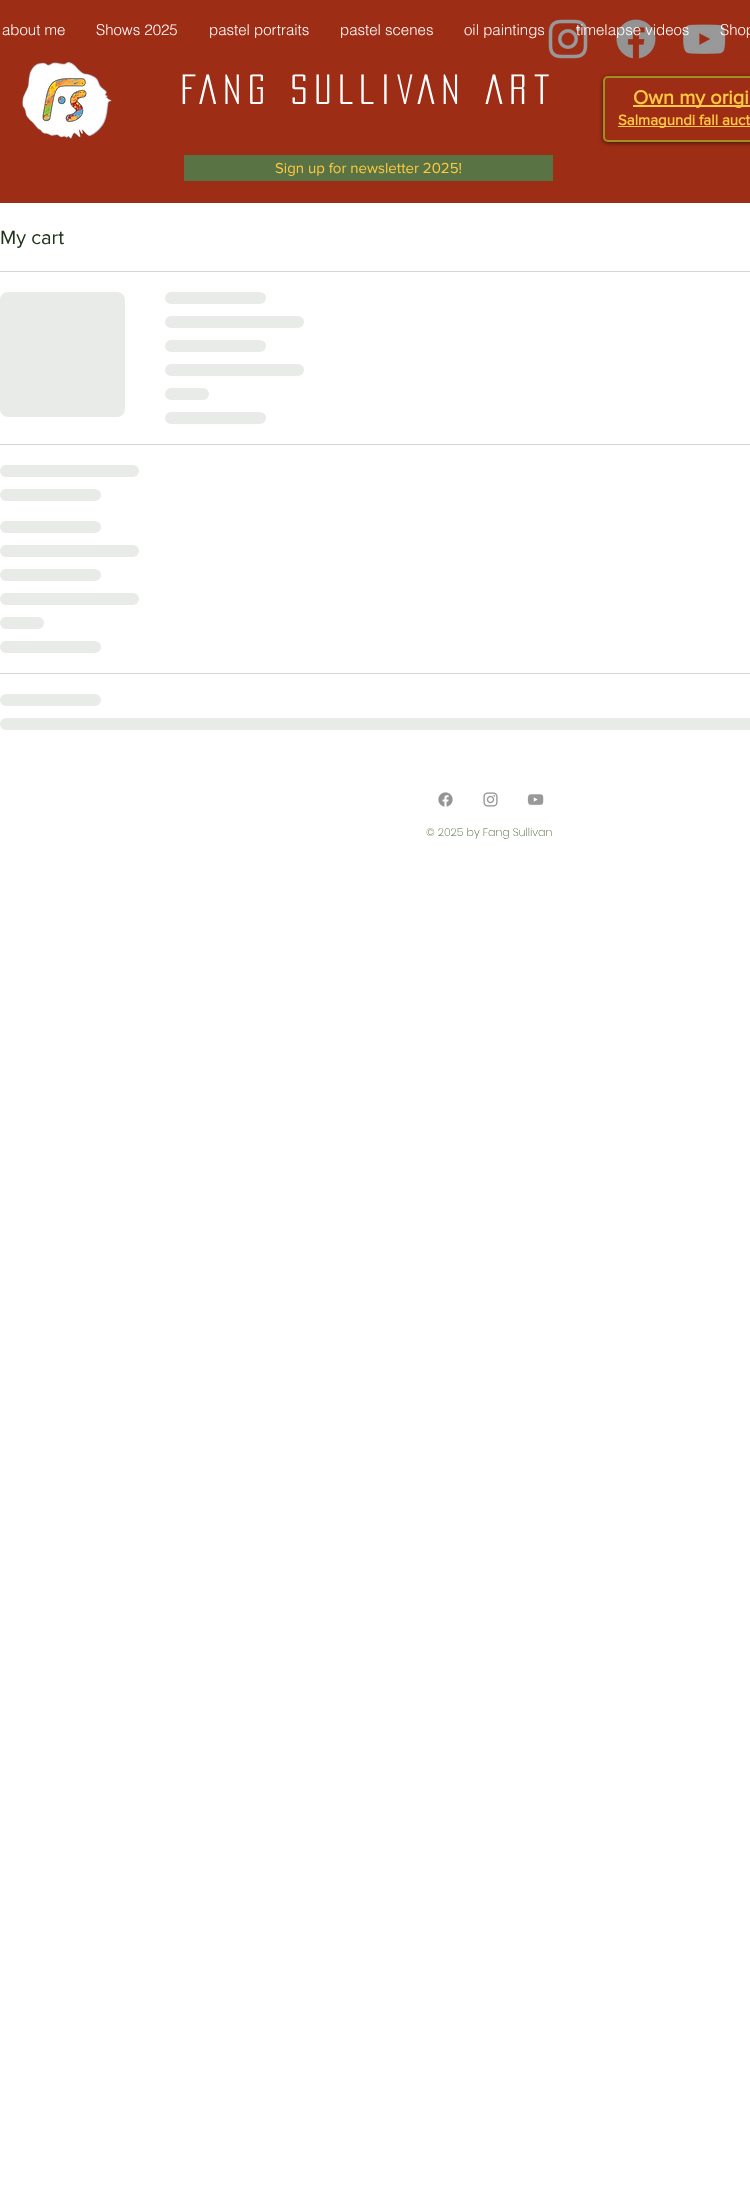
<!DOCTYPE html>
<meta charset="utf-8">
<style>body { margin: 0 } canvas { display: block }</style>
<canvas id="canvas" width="750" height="2187"></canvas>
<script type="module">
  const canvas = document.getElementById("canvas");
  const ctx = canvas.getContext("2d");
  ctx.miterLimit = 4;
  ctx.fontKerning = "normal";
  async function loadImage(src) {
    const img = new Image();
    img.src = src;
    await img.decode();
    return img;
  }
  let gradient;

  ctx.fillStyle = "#ffffff";
  ctx.fillRect(0, 0, 750, 2187);
  ctx.fillStyle = "#9e2d16";
  ctx.fillRect(0, 0, 750, 203);
  ctx.drawImage(await loadImage("img1.png"), 548, 19, 40, 40);
  ctx.drawImage(await loadImage("img2.png"), 616, 19, 40, 40);
  ctx.drawImage(await loadImage("img3.png"), 683, 24, 43, 30);
  ctx.font = "300 15px helvetica";
  ctx.fillStyle = "#ffffff";
  ctx.fillText("about me", 2, 35);
  ctx.fillText("Shows 2025", 96, 35);
  ctx.fillText("pastel portraits", 209, 35);
  ctx.fillText("pastel scenes", 340, 35);
  ctx.fillText("oil paintings", 464, 35);
  ctx.fillText("timelapse videos", 576, 35);
  ctx.fillText("Shop", 720, 35);
  ctx.drawImage(await loadImage("img4.png"), 22, 62, 90, 77);
  ctx.letterSpacing = "7.4px";
  ctx.font = "37px 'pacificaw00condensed'";
  ctx.fillText("FANG SULLIVAN Art", 181, 104);
  ctx.save();
  ctx.beginPath();
  ctx.moveTo(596, 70);
  ctx.lineTo(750, 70);
  ctx.lineTo(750, 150);
  ctx.lineTo(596, 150);
  ctx.closePath();
  ctx.moveTo(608, 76);
  ctx.lineTo(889, 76);
  ctx.bezierCurveTo(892, 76, 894, 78, 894, 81);
  ctx.lineTo(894, 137);
  ctx.bezierCurveTo(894, 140, 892, 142, 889, 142);
  ctx.lineTo(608, 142);
  ctx.bezierCurveTo(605, 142, 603, 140, 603, 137);
  ctx.lineTo(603, 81);
  ctx.bezierCurveTo(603, 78, 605, 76, 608, 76);
  ctx.closePath();
  ctx.clip("evenodd");
  ctx.fillStyle = "rgba(0, 0, 0, 0.6)";
  ctx.filter = "blur(2px)";
  ctx.beginPath();
  ctx.roundRect(603, 77, 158, 66, 5);
  ctx.fill();
  ctx.filter = "none";
  ctx.restore();
  ctx.beginPath();
  ctx.roundRect(604, 77, 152, 64, 4);
  ctx.strokeStyle = "#9e911e";
  ctx.lineWidth = 2;
  ctx.stroke();
  ctx.fillStyle = "#ffca42";
  ctx.fillRect(633, 105, 117, 2);
  ctx.letterSpacing = "0px";
  ctx.font = "bold 20px 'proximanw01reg'";
  ctx.fillText("Own my origi", 633, 104);
  ctx.fillRect(618, 126, 132, 1);
  ctx.font = "bold 15px 'proximanw01reg'";
  ctx.fillText("Salmagundi fall auct", 618, 125);
  ctx.fillStyle = "#597344";
  ctx.fillRect(184, 155, 369, 26);
  ctx.font = "15px 'proximanw01reg'";
  ctx.fillStyle = "#ffca42";
  ctx.fillText("Sign up for newsletter 2025!", 275, 173);
  ctx.fillStyle = "#d3d6d1";
  ctx.fillRect(0, 271, 750, 1);
  ctx.font = "20px 'proximanw01reg'";
  ctx.fillStyle = "#213419";
  ctx.fillText("My cart", 0, 244);
  gradient = ctx.createLinearGradient(0, 355, 500, 355);
  gradient.addColorStop(0.25, "#e9ebe8");
  gradient.addColorStop(0.37, "#d3d6d1");
  gradient.addColorStop(0.63, "#e9ebe8");
  ctx.fillStyle = gradient;
  ctx.beginPath();
  ctx.roundRect(0, 292, 125, 125, 8);
  ctx.fill();
  gradient = ctx.createLinearGradient(165, 298, 569, 298);
  gradient.addColorStop(0.25, "#e9ebe8");
  gradient.addColorStop(0.37, "#d3d6d1");
  gradient.addColorStop(0.63, "#e9ebe8");
  ctx.fillStyle = gradient;
  ctx.beginPath();
  ctx.roundRect(165, 292, 101, 12, 6);
  ctx.fill();
  gradient = ctx.createLinearGradient(165, 322, 721, 322);
  gradient.addColorStop(0.25, "#e9ebe8");
  gradient.addColorStop(0.37, "#d3d6d1");
  gradient.addColorStop(0.63, "#e9ebe8");
  ctx.fillStyle = gradient;
  ctx.beginPath();
  ctx.roundRect(165, 316, 139, 12, 6);
  ctx.fill();
  gradient = ctx.createLinearGradient(165, 346, 569, 346);
  gradient.addColorStop(0.25, "#e9ebe8");
  gradient.addColorStop(0.37, "#d3d6d1");
  gradient.addColorStop(0.63, "#e9ebe8");
  ctx.fillStyle = gradient;
  ctx.beginPath();
  ctx.roundRect(165, 340, 101, 12, 6);
  ctx.fill();
  gradient = ctx.createLinearGradient(165, 370, 721, 370);
  gradient.addColorStop(0.25, "#e9ebe8");
  gradient.addColorStop(0.37, "#d3d6d1");
  gradient.addColorStop(0.63, "#e9ebe8");
  ctx.fillStyle = gradient;
  ctx.beginPath();
  ctx.roundRect(165, 364, 139, 12, 6);
  ctx.fill();
  gradient = ctx.createLinearGradient(165, 394, 341, 394);
  gradient.addColorStop(0.25, "#e9ebe8");
  gradient.addColorStop(0.37, "#d3d6d1");
  gradient.addColorStop(0.63, "#e9ebe8");
  ctx.fillStyle = gradient;
  ctx.beginPath();
  ctx.roundRect(165, 388, 44, 12, 6);
  ctx.fill();
  gradient = ctx.createLinearGradient(165, 418, 569, 418);
  gradient.addColorStop(0.25, "#e9ebe8");
  gradient.addColorStop(0.37, "#d3d6d1");
  gradient.addColorStop(0.63, "#e9ebe8");
  ctx.fillStyle = gradient;
  ctx.beginPath();
  ctx.roundRect(165, 412, 101, 12, 6);
  ctx.fill();
  ctx.fillStyle = "#d3d6d1";
  ctx.fillRect(0, 444, 750, 1);
  gradient = ctx.createLinearGradient(0, 471, 556, 471);
  gradient.addColorStop(0.25, "#e9ebe8");
  gradient.addColorStop(0.37, "#d3d6d1");
  gradient.addColorStop(0.63, "#e9ebe8");
  ctx.fillStyle = gradient;
  ctx.beginPath();
  ctx.roundRect(0, 465, 139, 12, 6);
  ctx.fill();
  gradient = ctx.createLinearGradient(0, 495, 404, 495);
  gradient.addColorStop(0.25, "#e9ebe8");
  gradient.addColorStop(0.37, "#d3d6d1");
  gradient.addColorStop(0.63, "#e9ebe8");
  ctx.fillStyle = gradient;
  ctx.beginPath();
  ctx.roundRect(0, 489, 101, 12, 6);
  ctx.fill();
  gradient = ctx.createLinearGradient(0, 527, 404, 527);
  gradient.addColorStop(0.25, "#e9ebe8");
  gradient.addColorStop(0.37, "#d3d6d1");
  gradient.addColorStop(0.63, "#e9ebe8");
  ctx.fillStyle = gradient;
  ctx.beginPath();
  ctx.roundRect(0, 521, 101, 12, 6);
  ctx.fill();
  gradient = ctx.createLinearGradient(0, 551, 556, 551);
  gradient.addColorStop(0.25, "#e9ebe8");
  gradient.addColorStop(0.37, "#d3d6d1");
  gradient.addColorStop(0.63, "#e9ebe8");
  ctx.fillStyle = gradient;
  ctx.beginPath();
  ctx.roundRect(0, 545, 139, 12, 6);
  ctx.fill();
  gradient = ctx.createLinearGradient(0, 575, 404, 575);
  gradient.addColorStop(0.25, "#e9ebe8");
  gradient.addColorStop(0.37, "#d3d6d1");
  gradient.addColorStop(0.63, "#e9ebe8");
  ctx.fillStyle = gradient;
  ctx.beginPath();
  ctx.roundRect(0, 569, 101, 12, 6);
  ctx.fill();
  gradient = ctx.createLinearGradient(0, 599, 556, 599);
  gradient.addColorStop(0.25, "#e9ebe8");
  gradient.addColorStop(0.37, "#d3d6d1");
  gradient.addColorStop(0.63, "#e9ebe8");
  ctx.fillStyle = gradient;
  ctx.beginPath();
  ctx.roundRect(0, 593, 139, 12, 6);
  ctx.fill();
  gradient = ctx.createLinearGradient(0, 623, 176, 623);
  gradient.addColorStop(0.25, "#e9ebe8");
  gradient.addColorStop(0.37, "#d3d6d1");
  gradient.addColorStop(0.63, "#e9ebe8");
  ctx.fillStyle = gradient;
  ctx.beginPath();
  ctx.roundRect(0, 617, 44, 12, 6);
  ctx.fill();
  gradient = ctx.createLinearGradient(0, 647, 404, 647);
  gradient.addColorStop(0.25, "#e9ebe8");
  gradient.addColorStop(0.37, "#d3d6d1");
  gradient.addColorStop(0.63, "#e9ebe8");
  ctx.fillStyle = gradient;
  ctx.beginPath();
  ctx.roundRect(0, 641, 101, 12, 6);
  ctx.fill();
  ctx.fillStyle = "#d3d6d1";
  ctx.fillRect(0, 673, 750, 1);
  gradient = ctx.createLinearGradient(0, 700, 404, 700);
  gradient.addColorStop(0.25, "#e9ebe8");
  gradient.addColorStop(0.37, "#d3d6d1");
  gradient.addColorStop(0.63, "#e9ebe8");
  ctx.fillStyle = gradient;
  ctx.beginPath();
  ctx.roundRect(0, 694, 101, 12, 6);
  ctx.fill();
  gradient = ctx.createLinearGradient(0, 724, 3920, 724);
  gradient.addColorStop(0.25, "#e9ebe8");
  gradient.addColorStop(0.37, "#d3d6d1");
  gradient.addColorStop(0.63, "#e9ebe8");
  ctx.fillStyle = gradient;
  ctx.beginPath();
  ctx.roundRect(0, 718, 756, 12, 6);
  ctx.fill();
  ctx.drawImage(await loadImage("img5.png"), 438, 792, 15, 15);
  ctx.drawImage(await loadImage("img6.png"), 483, 792, 15, 15);
  ctx.drawImage(await loadImage("img7.png"), 527, 794, 17, 12);
  ctx.font = "200 11px Poppins";
  ctx.fillStyle = "#4b6635";
  ctx.fillText("© 2025 by Fang Sullivan", 426, 836);
</script>
